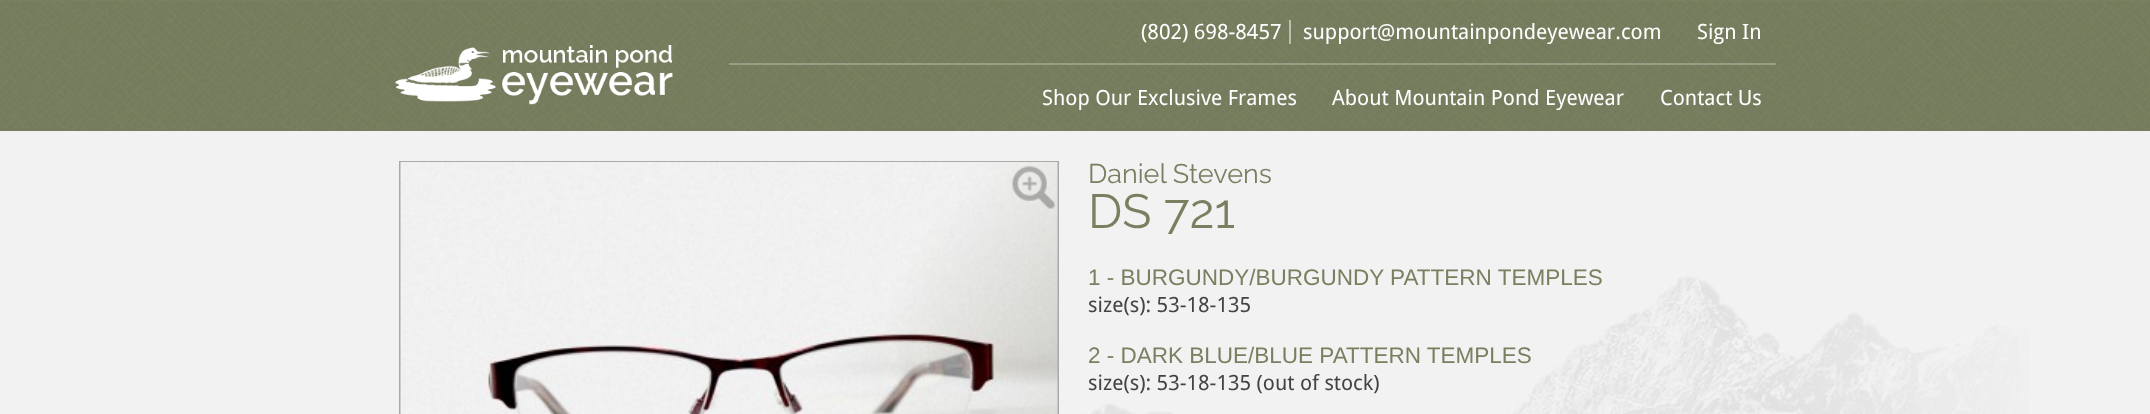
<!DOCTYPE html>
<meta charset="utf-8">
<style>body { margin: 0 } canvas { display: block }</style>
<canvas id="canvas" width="2150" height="414"></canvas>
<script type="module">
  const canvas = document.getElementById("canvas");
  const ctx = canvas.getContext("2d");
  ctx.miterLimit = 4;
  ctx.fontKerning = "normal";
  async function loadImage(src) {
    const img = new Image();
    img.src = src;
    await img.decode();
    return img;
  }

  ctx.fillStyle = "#807860";
  ctx.fillRect(0, 0, 2150, 414);
  ctx.drawImage(await loadImage("img1.png"), 0, 0, 2150, 131);
  ctx.drawImage(await loadImage("img2.png"), 395, 45, 278, 60);
  ctx.font = "21px Droid Sans";
  ctx.fillStyle = "#ffffff";
  ctx.fillText("(802) 698-8457", 1141, 39);
  ctx.fillStyle = "rgba(255, 255, 255, 0.5)";
  ctx.fillRect(1289, 20, 2, 24);
  ctx.fillStyle = "#ffffff";
  ctx.fillText("support@mountainpondeyewear.com", 1303, 39);
  ctx.fillText("Sign In", 1697, 39);
  ctx.fillStyle = "rgba(255, 255, 255, 0.25)";
  ctx.fillRect(729, 63, 1047, 2);
  ctx.fillStyle = "#ffffff";
  ctx.fillText("Shop Our Exclusive Frames", 1042, 105);
  ctx.fillText("About Mountain Pond Eyewear", 1332, 105);
  ctx.fillText("Contact Us", 1660, 105);
  ctx.fillStyle = "#f2f2f2";
  ctx.fillRect(0, 131, 2150, 283);
  ctx.strokeStyle = "#a9a9a9";
  ctx.lineWidth = 2;
  ctx.strokeRect(400, 162, 658, 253);
  ctx.drawImage(await loadImage("img3.png"), 400, 162, 658, 252);
  ctx.drawImage(await loadImage("img4.png"), 1012, 166, 43, 43);
  ctx.font = "27px Raleway";
  ctx.fillStyle = "#788060";
  ctx.fillText("Daniel Stevens", 1088, 183);
  ctx.font = "48px Raleway";
  ctx.fillText("DS 721", 1088, 228);
  ctx.drawImage(await loadImage("img5.png"), 1059, 276, 970, 138);
  ctx.font = "22.5px Liberation Sans";
  ctx.fillText("1 - BURGUNDY/BURGUNDY PATTERN TEMPLES", 1088, 285);
  ctx.font = "21px Droid Sans";
  ctx.fillStyle = "#444444";
  ctx.fillText("size(s): 53-18-135", 1088, 312);
  ctx.font = "22.5px Liberation Sans";
  ctx.fillStyle = "#788060";
  ctx.fillText("2 - DARK BLUE/BLUE PATTERN TEMPLES", 1088, 363);
  ctx.font = "21px Droid Sans";
  ctx.fillStyle = "#444444";
  ctx.fillText("size(s): 53-18-135 (out of stock)", 1088, 390);
</script>
